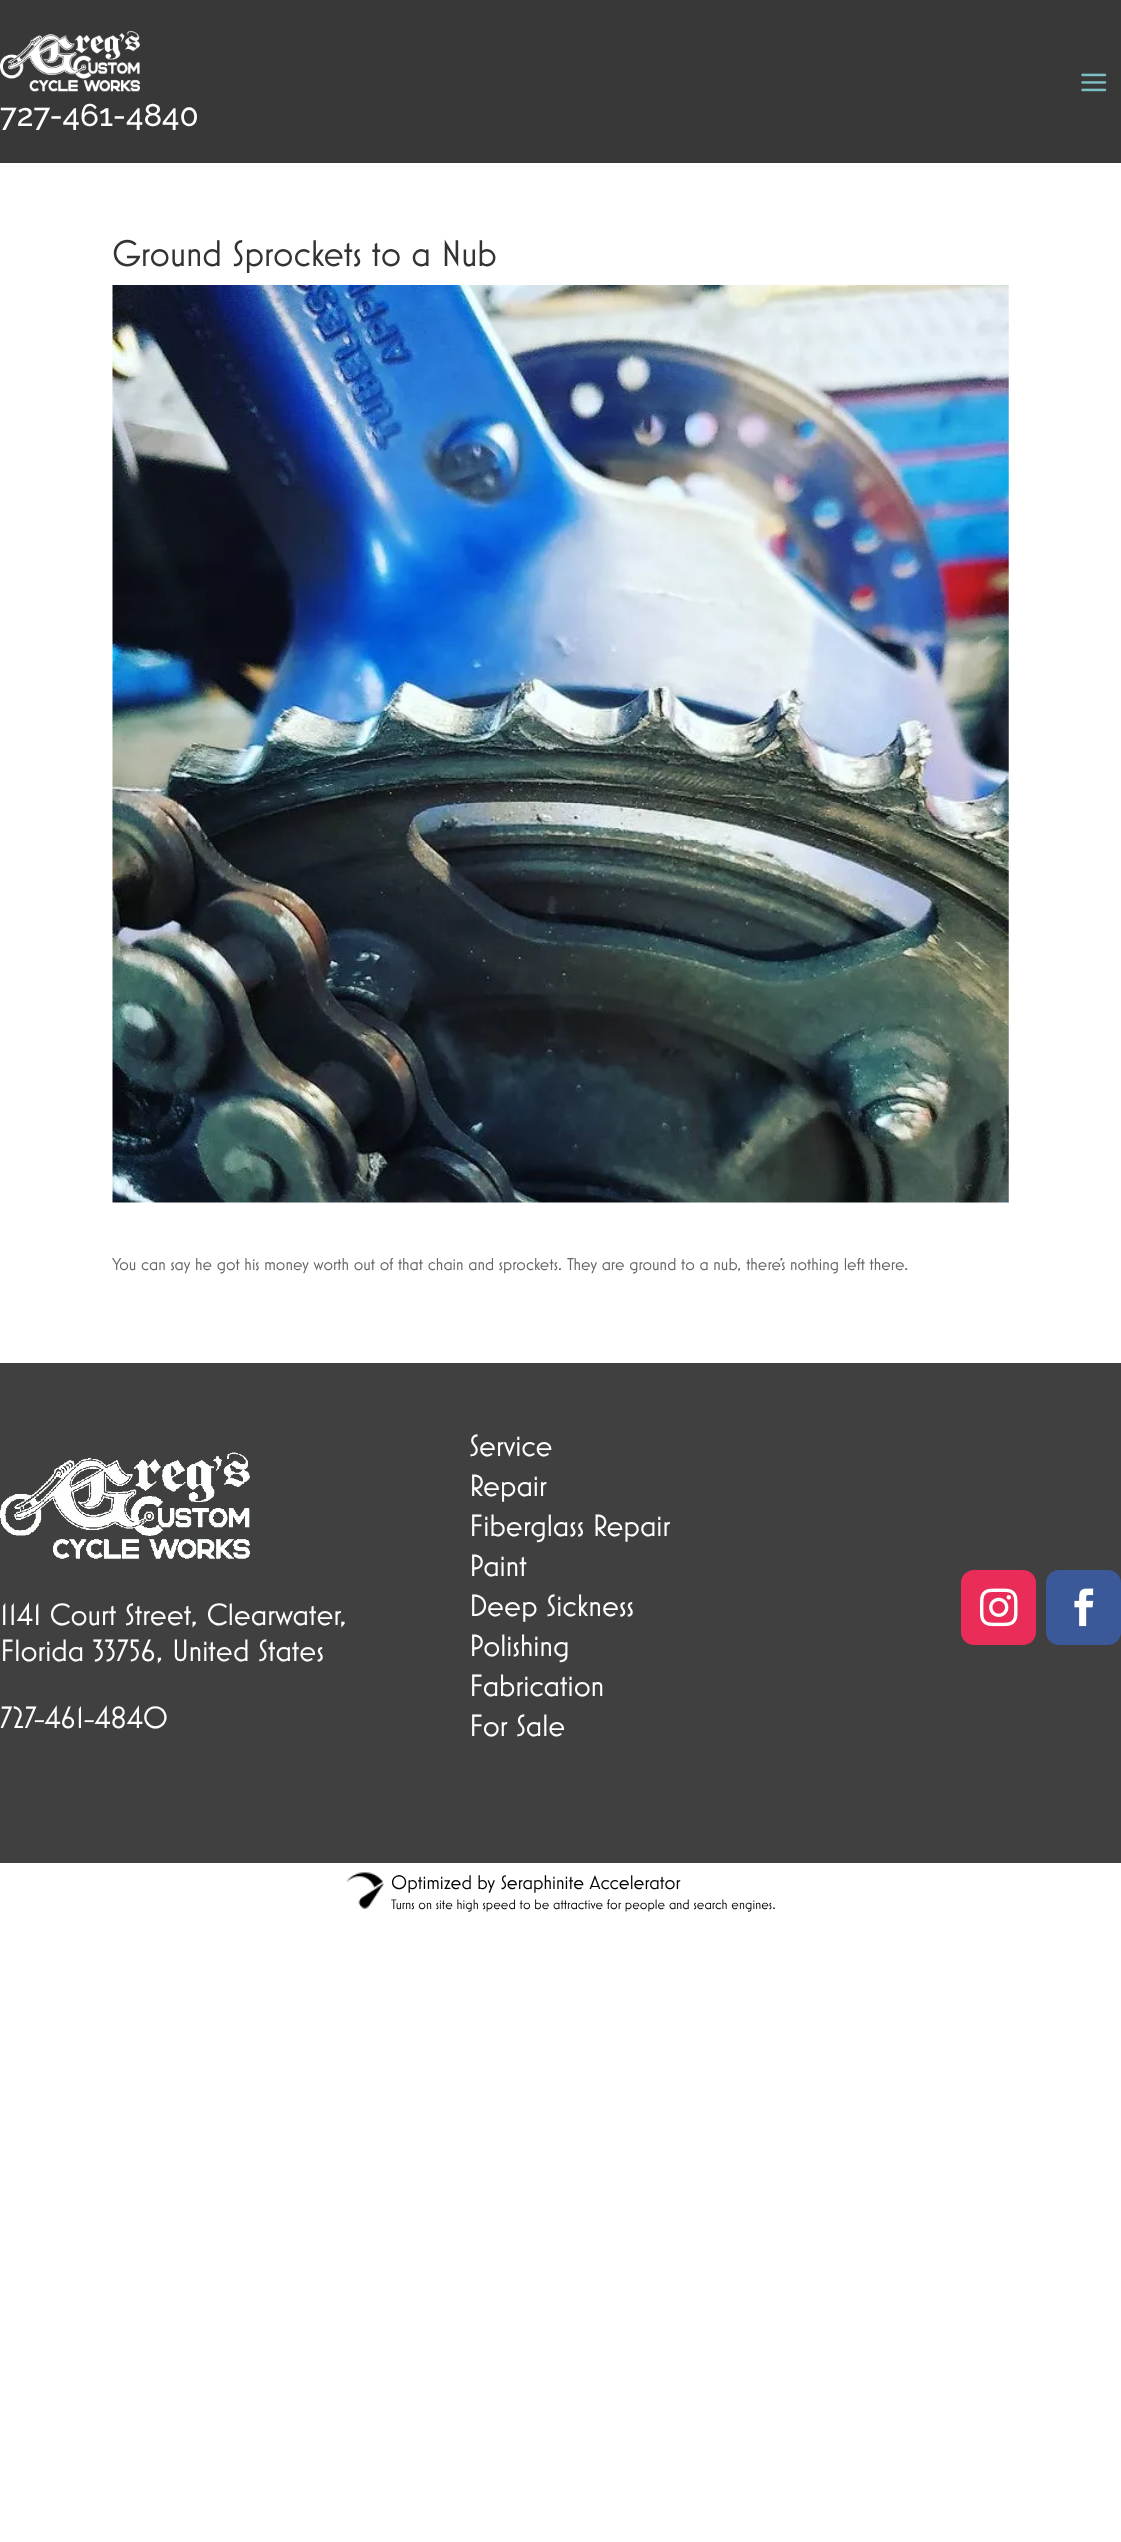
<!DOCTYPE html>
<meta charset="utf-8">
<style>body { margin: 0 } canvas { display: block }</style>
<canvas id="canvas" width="1121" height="2542"></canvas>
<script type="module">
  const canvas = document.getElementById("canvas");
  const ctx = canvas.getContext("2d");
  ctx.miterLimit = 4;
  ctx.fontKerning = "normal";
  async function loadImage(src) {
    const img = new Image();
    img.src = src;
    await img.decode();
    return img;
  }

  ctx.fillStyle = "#ffffff";
  ctx.fillRect(0, 0, 1121, 2542);
  ctx.fillStyle = "#383839";
  ctx.fillRect(0, 0, 1121, 163);
  ctx.drawImage(await loadImage("img1.png"), 1081, 73, 26, 19);
  ctx.drawImage(await loadImage("img2.png"), 0, 31, 140, 61);
  ctx.font = "500 31.25px Raleway";
  ctx.fillStyle = "#ffffff";
  ctx.fillText("727-461-4840", 0, 126);
  ctx.font = "300 37.5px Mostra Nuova";
  ctx.fillStyle = "#333333";
  ctx.fillText("Ground Sprockets to a Nub", 112, 266);
  ctx.drawImage(await loadImage("img3.png"), 112, 285, 897, 918);
  ctx.font = "300 17.5px Mostra Nuova";
  ctx.fillStyle = "#666666";
  ctx.fillText("You can say he got his money worth out of that chain and sprockets. They are ground to a nub, there’s nothing left there.", 112, 1270);
  ctx.fillStyle = "#404040";
  ctx.fillRect(0, 1363, 1121, 500);
  ctx.drawImage(await loadImage("img4.png"), 0, 1452, 250, 107);
  ctx.font = "300 31.25px Mostra Nuova";
  ctx.fillStyle = "#ffffff";
  ctx.fillText("1141 Court Street, Clearwater,", 0, 1625);
  ctx.fillText("Florida 33756, United States", 0, 1661);
  ctx.fillText("727-461-4840", 0, 1728);
  ctx.fillText("Service", 469, 1456);
  ctx.fillText("Repair", 469, 1496);
  ctx.fillText("Fiberglass Repair", 469, 1536);
  ctx.fillText("Paint", 469, 1576);
  ctx.fillText("Deep Sickness", 469, 1616);
  ctx.fillText("Polishing", 469, 1656);
  ctx.fillText("Fabrication", 469, 1696);
  ctx.fillText("For Sale", 469, 1736);
  ctx.fillStyle = "#ea2c59";
  ctx.beginPath();
  ctx.roundRect(961, 1570, 75, 75, 13);
  ctx.fill();
  ctx.drawImage(await loadImage("img5.png"), 980, 1588, 38, 39);
  ctx.fillStyle = "#3b5998";
  ctx.beginPath();
  ctx.roundRect(1046, 1570, 75, 75, 13);
  ctx.fill();
  ctx.drawImage(await loadImage("img6.png"), 1074, 1588, 20, 39);
  ctx.drawImage(await loadImage("img7.png"), 346, 1872, 38, 37);
  ctx.font = "300 20px Mostra Nuova";
  ctx.fillStyle = "#000000";
  ctx.fillText("Optimized by Seraphinite Accelerator", 391, 1889);
  ctx.font = "300 14px Mostra Nuova";
  ctx.fillText("Turns on site high speed to be attractive for people and search engines.", 391, 1909);
</script>
